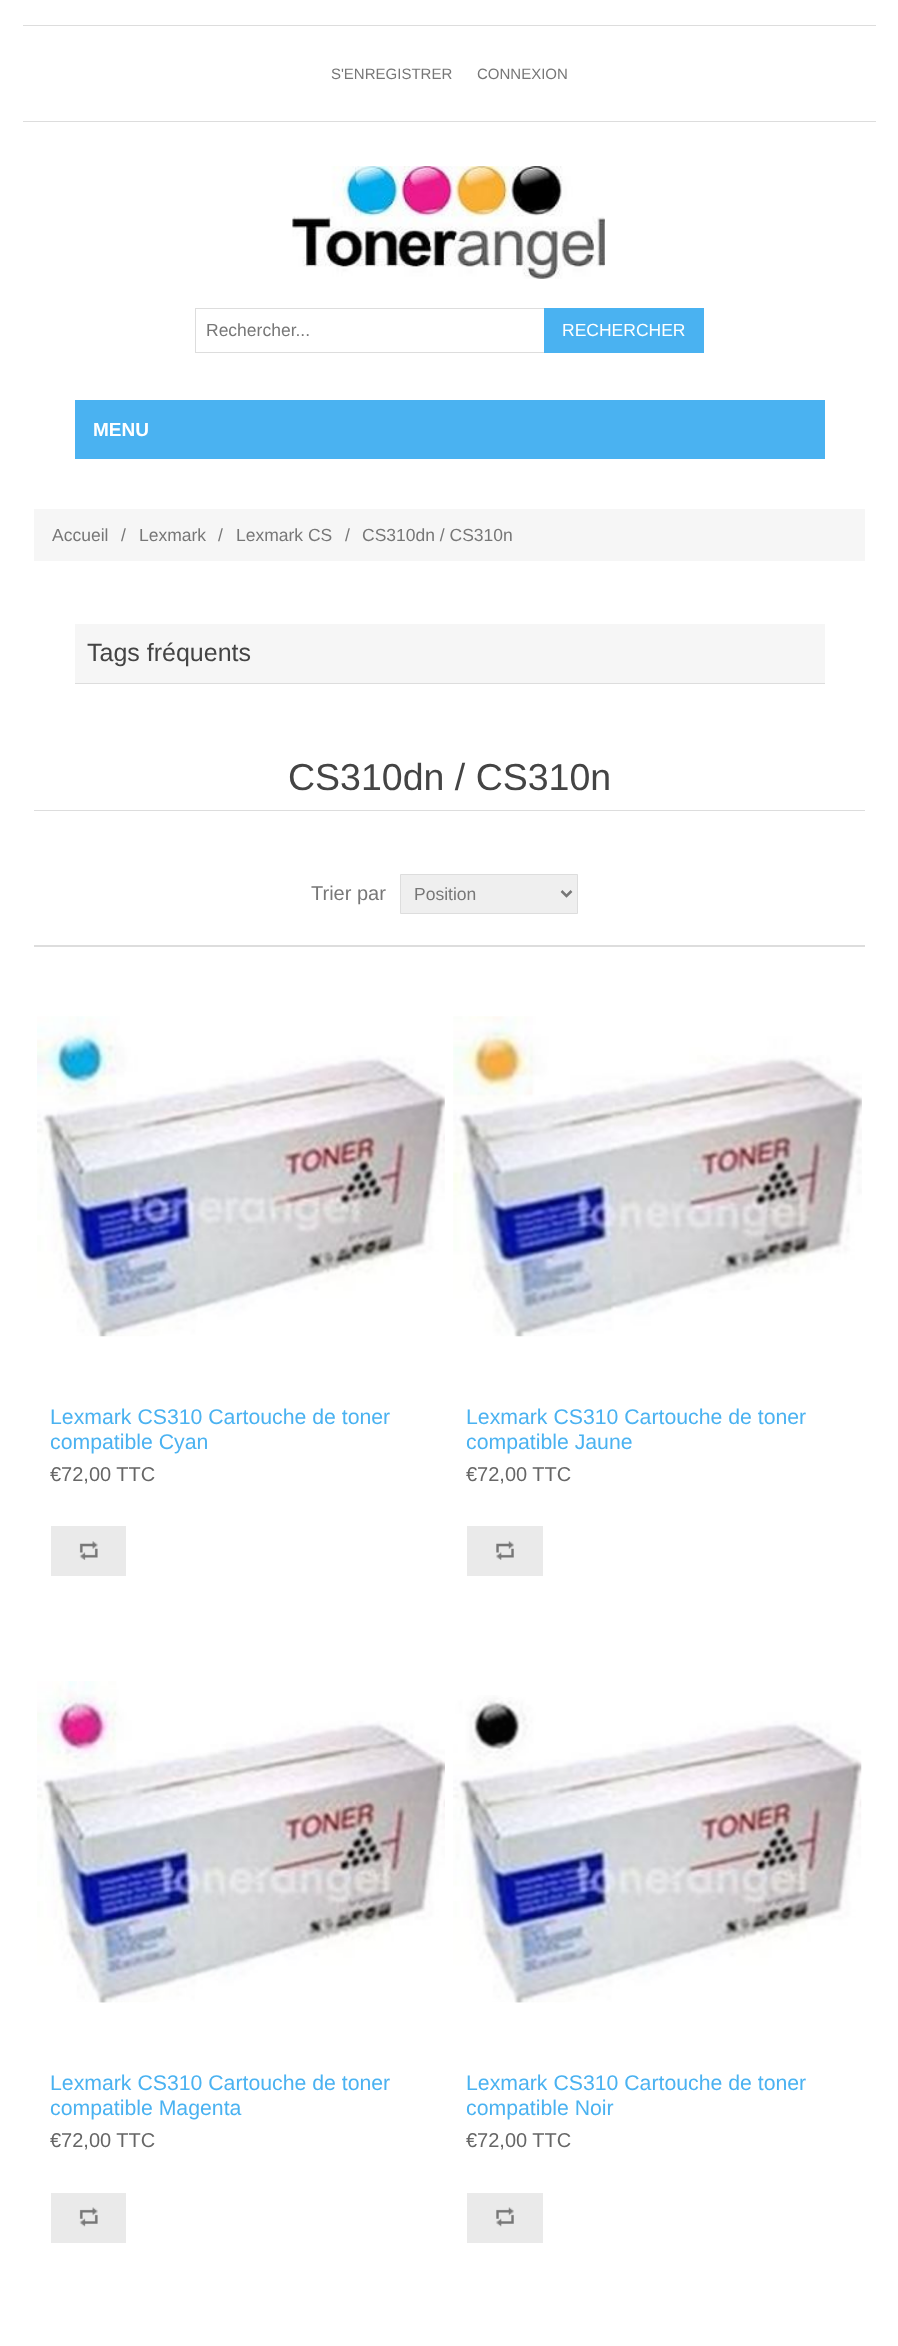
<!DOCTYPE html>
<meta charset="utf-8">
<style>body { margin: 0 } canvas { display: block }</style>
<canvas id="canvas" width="898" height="2346"></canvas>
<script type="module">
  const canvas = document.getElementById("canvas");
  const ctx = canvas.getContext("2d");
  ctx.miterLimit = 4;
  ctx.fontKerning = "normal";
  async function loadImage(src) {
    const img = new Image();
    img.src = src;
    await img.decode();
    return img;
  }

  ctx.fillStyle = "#ffffff";
  ctx.fillRect(0, 0, 898, 2346);
  ctx.fillStyle = "#dddddd";
  ctx.fillRect(23, 121, 853, 1);
  ctx.fillRect(23, 25, 853, 1);
  ctx.font = "15px Liberation Sans";
  ctx.fillStyle = "#777777";
  ctx.fillText("S'ENREGISTRER", 331, 79);
  ctx.fillText("CONNEXION", 477, 79);
  ctx.drawImage(await loadImage("img1.png"), 292, 166, 313, 113);
  ctx.strokeStyle = "#dddddd";
  ctx.strokeRect(195.5, 308.5, 349, 44);
  ctx.font = "17.5px Liberation Sans";
  ctx.fillText("Rechercher...", 206, 336);
  ctx.fillStyle = "#4ab2f1";
  ctx.fillRect(544, 308, 160, 45);
  ctx.fillStyle = "#ffffff";
  ctx.fillText("RECHERCHER", 562, 336);
  ctx.fillStyle = "#4ab2f1";
  ctx.fillRect(75, 400, 750, 59);
  ctx.font = "bold 19px Liberation Sans";
  ctx.fillStyle = "#ffffff";
  ctx.fillText("MENU", 93, 436);
  ctx.fillStyle = "#f6f6f6";
  ctx.fillRect(34, 509, 831, 52);
  ctx.font = "17.5px Liberation Sans";
  ctx.fillStyle = "#777777";
  ctx.fillText("Accueil", 52, 541);
  ctx.fillText("/", 121, 541);
  ctx.fillText("Lexmark", 139, 541);
  ctx.fillText("/", 218, 541);
  ctx.fillText("Lexmark CS", 236, 541);
  ctx.fillText("/", 345, 541);
  ctx.fillText("CS310dn / CS310n", 362, 541);
  ctx.fillStyle = "#f6f6f6";
  ctx.fillRect(75, 624, 750, 59);
  ctx.fillStyle = "#dddddd";
  ctx.fillRect(75, 683, 750, 1);
  ctx.font = "25px Liberation Sans";
  ctx.fillStyle = "#444444";
  ctx.fillText("Tags fréquents", 87, 661);
  ctx.fillStyle = "#dddddd";
  ctx.fillRect(34, 810, 831, 1);
  ctx.font = "37.5px Liberation Sans";
  ctx.fillStyle = "#444444";
  ctx.fillText("CS310dn / CS310n", 288, 790);
  ctx.fillStyle = "#dddddd";
  ctx.fillRect(34, 945, 831, 2);
  ctx.font = "20px Liberation Sans";
  ctx.fillStyle = "#777777";
  ctx.fillText("Trier par", 311, 900);
  ctx.fillStyle = "#efefef";
  ctx.beginPath();
  ctx.rect(400.5, 874.5, 177, 39);
  ctx.fill();
  ctx.stroke();
  ctx.beginPath();
  ctx.moveTo(561.5, 891);
  ctx.lineTo(566.5, 896);
  ctx.lineTo(571.5, 891);
  ctx.strokeStyle = "#777777";
  ctx.lineWidth = 2.5;
  ctx.stroke();
  ctx.font = "17.5px Liberation Sans";
  ctx.fillStyle = "#777777";
  ctx.fillText("Position", 414, 900);
  ctx.drawImage(await loadImage("img2.png"), 37, 1016, 408, 321);
  ctx.font = "21.25px Liberation Sans";
  ctx.fillStyle = "#4ab2f1";
  ctx.fillText("Lexmark CS310 Cartouche de toner", 50, 1424);
  ctx.fillText("compatible Cyan", 50, 1449);
  ctx.font = "20px Liberation Sans";
  ctx.fillStyle = "#666666";
  ctx.fillText("€72,00 TTC", 50, 1481);
  ctx.fillStyle = "#eaeaea";
  ctx.fillRect(51, 1526, 75, 50);
  ctx.drawImage(await loadImage("img3.png"), 79, 1541, 19, 19);
  ctx.drawImage(await loadImage("img4.png"), 453, 1016, 409, 321);
  ctx.font = "21.25px Liberation Sans";
  ctx.fillStyle = "#4ab2f1";
  ctx.fillText("Lexmark CS310 Cartouche de toner", 466, 1424);
  ctx.fillText("compatible Jaune", 466, 1449);
  ctx.font = "20px Liberation Sans";
  ctx.fillStyle = "#666666";
  ctx.fillText("€72,00 TTC", 466, 1481);
  ctx.fillStyle = "#eaeaea";
  ctx.fillRect(467, 1526, 76, 50);
  ctx.drawImage(await loadImage("img5.png"), 496, 1541, 18, 19);
  ctx.drawImage(await loadImage("img6.png"), 37, 1681, 408, 322);
  ctx.font = "21.25px Liberation Sans";
  ctx.fillStyle = "#4ab2f1";
  ctx.fillText("Lexmark CS310 Cartouche de toner", 50, 2090);
  ctx.fillText("compatible Magenta", 50, 2115);
  ctx.font = "20px Liberation Sans";
  ctx.fillStyle = "#666666";
  ctx.fillText("€72,00 TTC", 50, 2147);
  ctx.fillStyle = "#eaeaea";
  ctx.fillRect(51, 2193, 75, 50);
  ctx.drawImage(await loadImage("img7.png"), 79, 2207, 19, 20);
  ctx.drawImage(await loadImage("img8.png"), 453, 1695, 409, 308);
  ctx.font = "21.25px Liberation Sans";
  ctx.fillStyle = "#4ab2f1";
  ctx.fillText("Lexmark CS310 Cartouche de toner", 466, 2090);
  ctx.fillText("compatible Noir", 466, 2115);
  ctx.font = "20px Liberation Sans";
  ctx.fillStyle = "#666666";
  ctx.fillText("€72,00 TTC", 466, 2147);
  ctx.fillStyle = "#eaeaea";
  ctx.fillRect(467, 2193, 76, 50);
  ctx.drawImage(await loadImage("img9.png"), 496, 2207, 18, 20);
</script>
